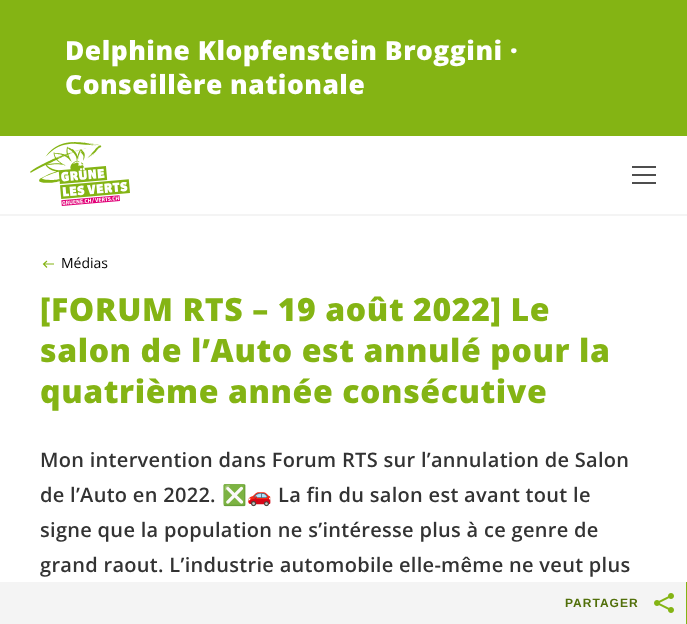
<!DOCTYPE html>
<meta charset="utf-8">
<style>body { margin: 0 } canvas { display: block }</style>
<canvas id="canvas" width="687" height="624"></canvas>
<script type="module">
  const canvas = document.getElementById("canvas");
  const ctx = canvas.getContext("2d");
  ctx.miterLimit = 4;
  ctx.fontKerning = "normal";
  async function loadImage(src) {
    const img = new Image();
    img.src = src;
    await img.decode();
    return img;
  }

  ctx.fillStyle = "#ffffff";
  ctx.fillRect(0, 0, 687, 624);
  ctx.fillStyle = "#84b414";
  ctx.fillRect(0, 0, 687, 136);
  ctx.letterSpacing = "0.5px";
  ctx.font = "800 26.4px Open Sans";
  ctx.fillStyle = "#ffffff";
  ctx.fillText("Delphine Klopfenstein Broggini ·", 65, 60);
  ctx.fillText("Conseillère nationale", 65, 94);
  ctx.fillStyle = "#f4f4f4";
  ctx.fillRect(0, 214, 687, 2);
  ctx.drawImage(await loadImage("img1.png"), 30, 142, 100, 64);
  ctx.fillStyle = "#4e4e4e";
  ctx.fillRect(632, 174, 24, 2);
  ctx.fillRect(632, 166, 24, 2);
  ctx.fillRect(632, 182, 24, 2);
  ctx.beginPath();
  ctx.moveTo(47, 267.5);
  ctx.lineTo(43.5, 264);
  ctx.lineTo(47, 261);
  ctx.moveTo(43.5, 264);
  ctx.lineTo(54, 264);
  ctx.strokeStyle = "#84b414";
  ctx.lineWidth = 1.1;
  ctx.stroke();
  ctx.letterSpacing = "0px";
  ctx.font = "14px Open Sans";
  ctx.fillStyle = "#000000";
  ctx.fillText("Médias", 61, 268);
  ctx.letterSpacing = "0.6px";
  ctx.font = "800 32px Open Sans";
  ctx.fillStyle = "#84b414";
  ctx.fillText("[FORUM RTS – 19 août 2022] Le", 40, 321);
  ctx.fillText("salon de l’Auto est annulé pour la", 40, 362);
  ctx.fillText("quatrième année consécutive", 40, 403);
  ctx.letterSpacing = "0.3px";
  ctx.font = "600 20px Open Sans";
  ctx.fillStyle = "#333333";
  ctx.fillText("Mon intervention dans Forum RTS sur l’annulation de Salon", 40, 467);
  ctx.fillText("de l’Auto en 2022.", 40, 502);
  ctx.font = "bold 20px Noto Color Emoji";
  ctx.fillText("❎🚗", 222, 502);
  ctx.font = "600 20px Open Sans";
  ctx.fillText("La fin du salon est avant tout le", 278, 502);
  ctx.fillText("signe que la population ne s’intéresse plus à ce genre de", 40, 537);
  ctx.fillText("grand raout. L’industrie automobile elle-même ne veut plus", 40, 572);
  ctx.fillStyle = "#f4f4f4";
  ctx.fillRect(0, 582, 686, 42);
  ctx.fillStyle = "#84b414";
  ctx.fillRect(686, 582, 1, 42);
  ctx.letterSpacing = "1px";
  ctx.font = "bold 12px Liberation Sans";
  ctx.fillStyle = "#516f0a";
  ctx.fillText("PARTAGER", 565, 607);
  ctx.drawImage(await loadImage("img2.png"), 654, 593, 20, 20);
</script>
